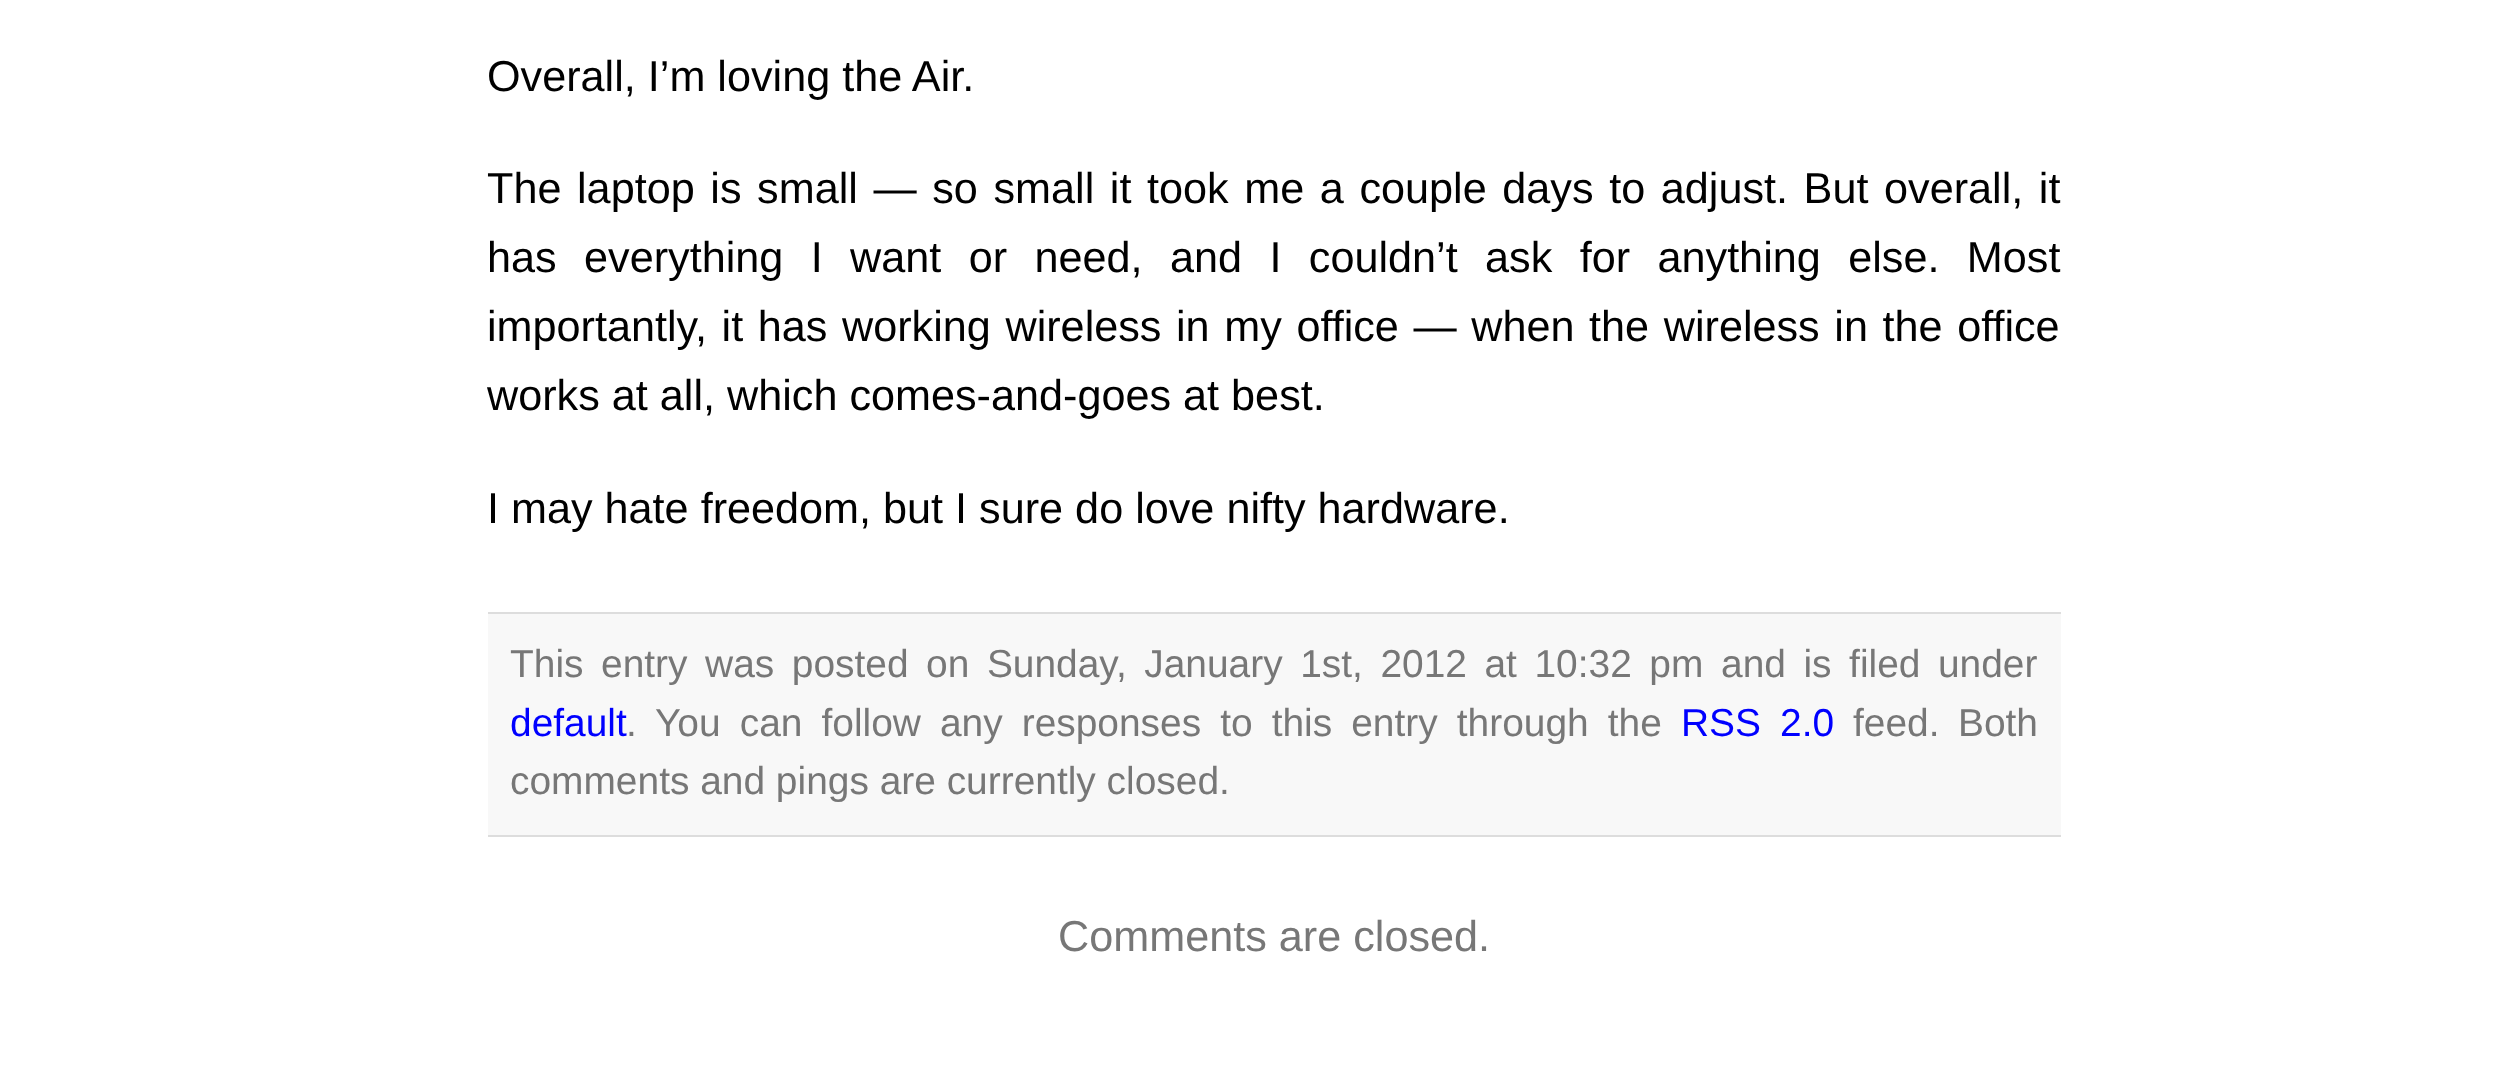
<!DOCTYPE html>
<meta charset="utf-8">
<style>body { margin: 0 } canvas { display: block }</style>
<canvas id="canvas" width="2496" height="1068"></canvas>
<script type="module">
  const canvas = document.getElementById("canvas");
  const ctx = canvas.getContext("2d");
  ctx.miterLimit = 4;
  ctx.fontKerning = "normal";

  ctx.fillStyle = "#ffffff";
  ctx.fillRect(0, 0, 2496, 1068);
  ctx.font = "43.2px Liberation Sans";
  ctx.fillStyle = "#000000";
  ctx.fillText("Overall, I’m loving the Air.", 487, 91);
  ctx.wordSpacing = "3.6px";
  ctx.fillText("The laptop is small — so small it took me a couple days to adjust. But overall, it", 487, 203);
  ctx.wordSpacing = "15.4px";
  ctx.fillText("has everything I want or need, and I couldn’t ask for anything else. Most", 487, 272);
  ctx.wordSpacing = "2.6px";
  ctx.fillText("importantly, it has working wireless in my office — when the wireless in the office", 487, 341);
  ctx.wordSpacing = "0px";
  ctx.fillText("works at all, which comes-and-goes at best.", 487, 410);
  ctx.fillText("I may hate freedom, but I sure do love nifty hardware.", 487, 523);
  ctx.fillStyle = "#f8f8f8";
  ctx.fillRect(488, 614, 1573, 221);
  ctx.fillStyle = "#dddddd";
  ctx.fillRect(488, 612, 1573, 2);
  ctx.fillRect(488, 835, 1573, 2);
  ctx.wordSpacing = "6.75px";
  ctx.font = "38.9px Liberation Sans";
  ctx.fillStyle = "#777777";
  ctx.fillText("This entry was posted on Sunday, January 1st, 2012 at 10:32 pm", 510, 677);
  ctx.fillText("and is filed under", 1721, 677);
  ctx.wordSpacing = "0px";
  ctx.fillStyle = "#0000ff";
  ctx.fillText("default", 510, 736);
  ctx.fillStyle = "#777777";
  ctx.fillText(".", 626, 736);
  ctx.wordSpacing = "8.25px";
  ctx.fillText("You can follow any responses to this entry through the", 655, 736);
  ctx.fillStyle = "#0000ff";
  ctx.fillText("RSS 2.0", 1681, 736);
  ctx.wordSpacing = "0px";
  ctx.fillStyle = "#777777";
  ctx.fillText("feed.", 1853, 736);
  ctx.fillText("Both", 1958, 736);
  ctx.fillText("comments and pings are currently closed.", 510, 794);
  ctx.font = "43.2px Liberation Sans";
  ctx.fillText("Comments are closed.", 1058, 951);
</script>
